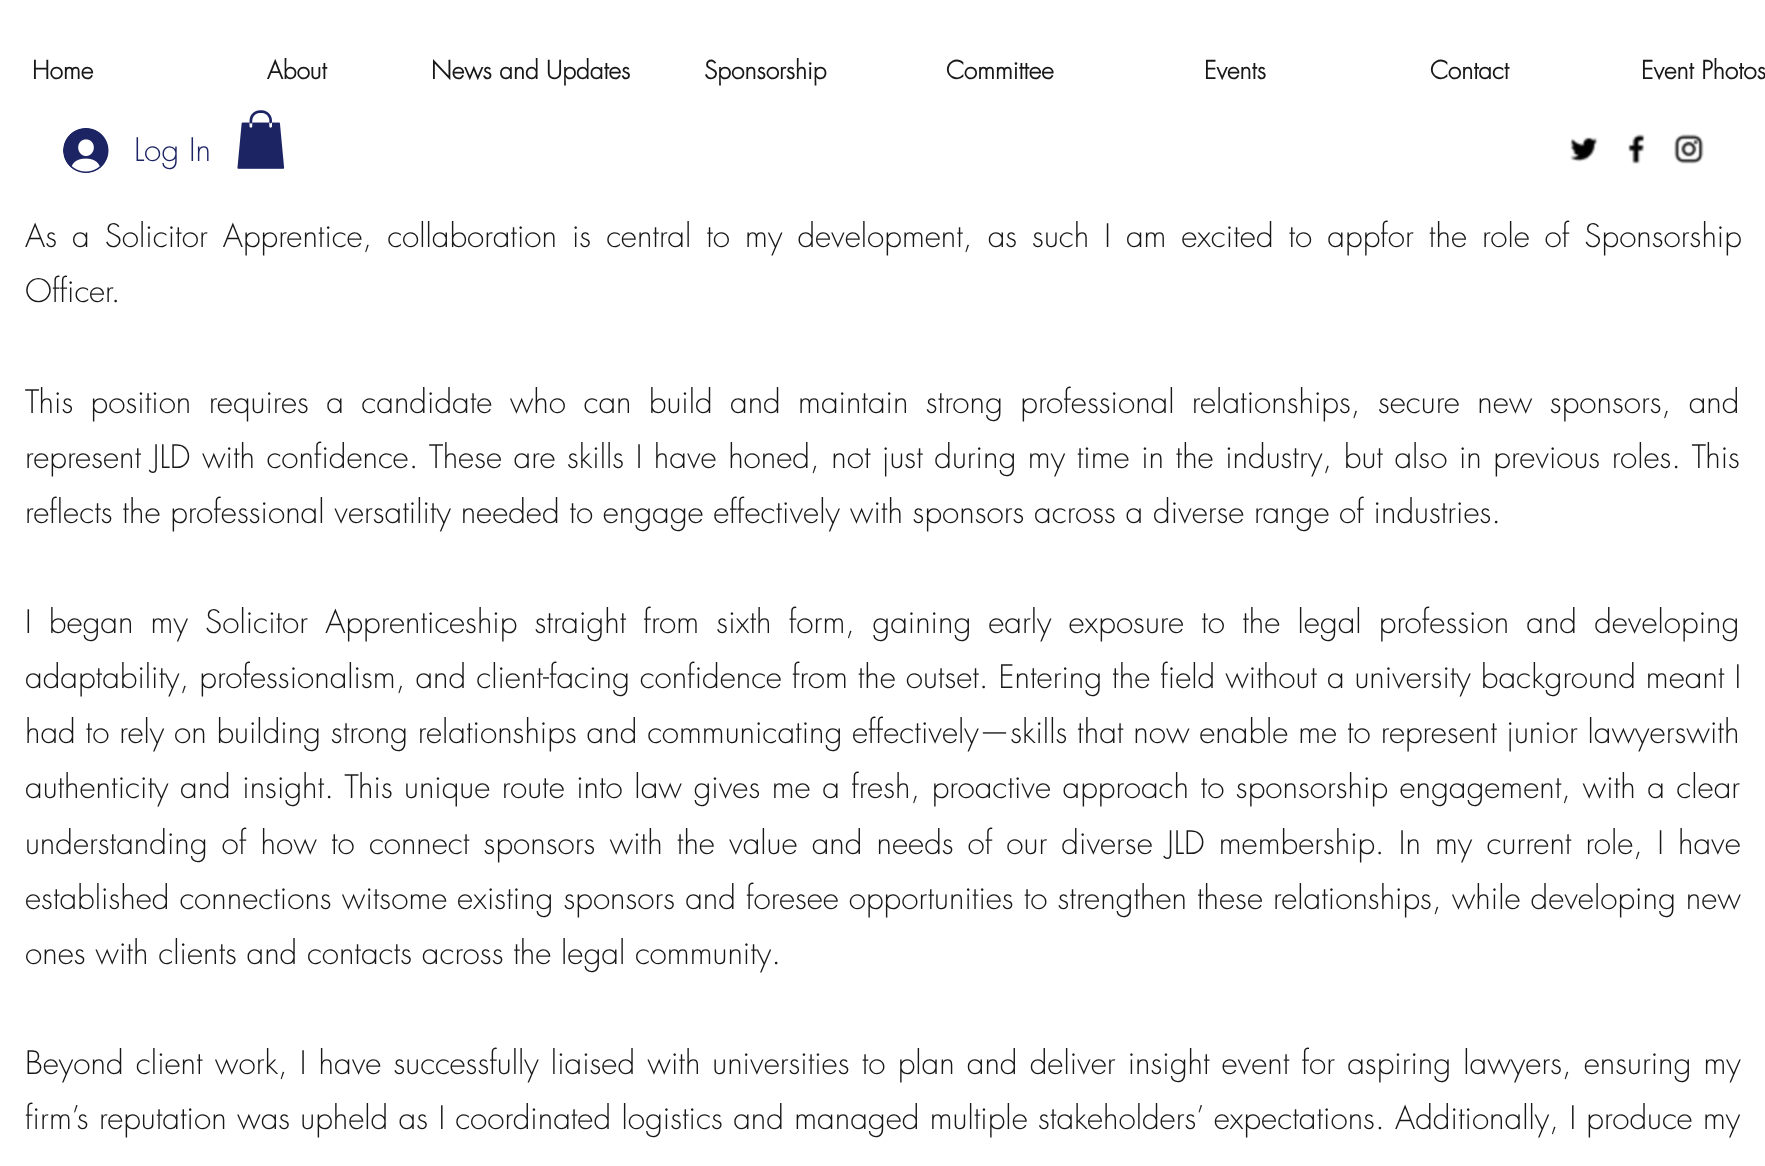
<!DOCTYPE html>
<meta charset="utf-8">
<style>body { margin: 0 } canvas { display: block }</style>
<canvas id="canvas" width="1765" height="1166"></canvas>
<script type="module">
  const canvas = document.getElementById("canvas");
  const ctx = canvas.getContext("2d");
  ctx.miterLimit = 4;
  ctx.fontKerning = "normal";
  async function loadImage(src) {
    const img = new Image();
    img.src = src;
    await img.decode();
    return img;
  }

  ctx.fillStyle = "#ffffff";
  ctx.fillRect(0, 0, 1765, 1166);
  ctx.font = "bold 24.5px futura";
  ctx.fillStyle = "#181818";
  ctx.fillText("Home", 32, 79);
  ctx.fillText("About", 267, 79);
  ctx.fillText("News and Updates", 431, 79);
  ctx.fillText("Sponsorship", 704, 79);
  ctx.fillText("Committee", 946, 79);
  ctx.fillText("Events", 1204, 79);
  ctx.fillText("Contact", 1430, 79);
  ctx.fillText("Event Photos", 1641, 79);
  ctx.drawImage(await loadImage("img1.png"), 63, 128, 46, 45);
  ctx.font = "300 31.5px futura";
  ctx.fillStyle = "#1c2464";
  ctx.fillText("Log In", 134, 161);
  ctx.drawImage(await loadImage("img2.png"), 237, 110, 48, 59);
  ctx.drawImage(await loadImage("img3.png"), 1570, 137, 28, 25);
  ctx.drawImage(await loadImage("img4.png"), 1628, 134, 17, 30);
  ctx.drawImage(await loadImage("img5.png"), 1674, 134, 30, 30);
  ctx.wordSpacing = "5.25px";
  ctx.fillStyle = "#181818";
  ctx.fillText("As a Solicitor Apprentice, collaboration is central to my development, as such I am excited to appfor the role of Sponsorship", 25, 247);
  ctx.wordSpacing = "0px";
  ctx.fillText("Officer.", 25, 302);
  ctx.wordSpacing = "7.6px";
  ctx.fillText("This position requires a candidate who can build and maintain strong professional relationships, secure new sponsors, and", 25, 413);
  ctx.wordSpacing = "1.8px";
  ctx.fillText("represent JLD with confidence. These are skills I have honed, not just during my time in the industry, but also in previous roles. This", 25, 468);
  ctx.wordSpacing = "0px";
  ctx.fillText("reflects the professional versatility needed to engage effectively with sponsors across a diverse range of industries.", 25, 523);
  ctx.wordSpacing = "7.4px";
  ctx.fillText("I began my Solicitor Apprenticeship straight from sixth form, gaining early exposure to the legal profession and developing", 25, 633);
  ctx.wordSpacing = "0.25px";
  ctx.fillText("adaptability, professionalism, and client-facing confidence from the outset. Entering the field without a university background meant I", 25, 688);
  ctx.wordSpacing = "0.1px";
  ctx.fillText("had to rely on building strong relationships and communicating effectively—skills that now enable me to represent junior lawyerswith", 25, 743);
  ctx.wordSpacing = "1.75px";
  ctx.fillText("authenticity and insight. This unique route into law gives me a fresh, proactive approach to sponsorship engagement, with a clear", 25, 798);
  ctx.wordSpacing = "4.4px";
  ctx.fillText("understanding of how to connect sponsors with the value and needs of our diverse JLD membership. In my current role, I have", 25, 854);
  ctx.wordSpacing = "0.25px";
  ctx.fillText("established connections witsome existing sponsors and foresee opportunities to strengthen these relationships, while developing new", 25, 909);
  ctx.wordSpacing = "0px";
  ctx.fillText("ones with clients and contacts across the legal community.", 25, 964);
  ctx.wordSpacing = "2.4px";
  ctx.fillText("Beyond client work, I have successfully liaised with universities to plan and deliver insight event for aspiring lawyers, ensuring my", 25, 1074);
  ctx.wordSpacing = "0.6px";
  ctx.fillText("firm’s reputation was upheld as I coordinated logistics and managed multiple stakeholders’ expectations. Additionally, I produce my", 25, 1129);
</script>
